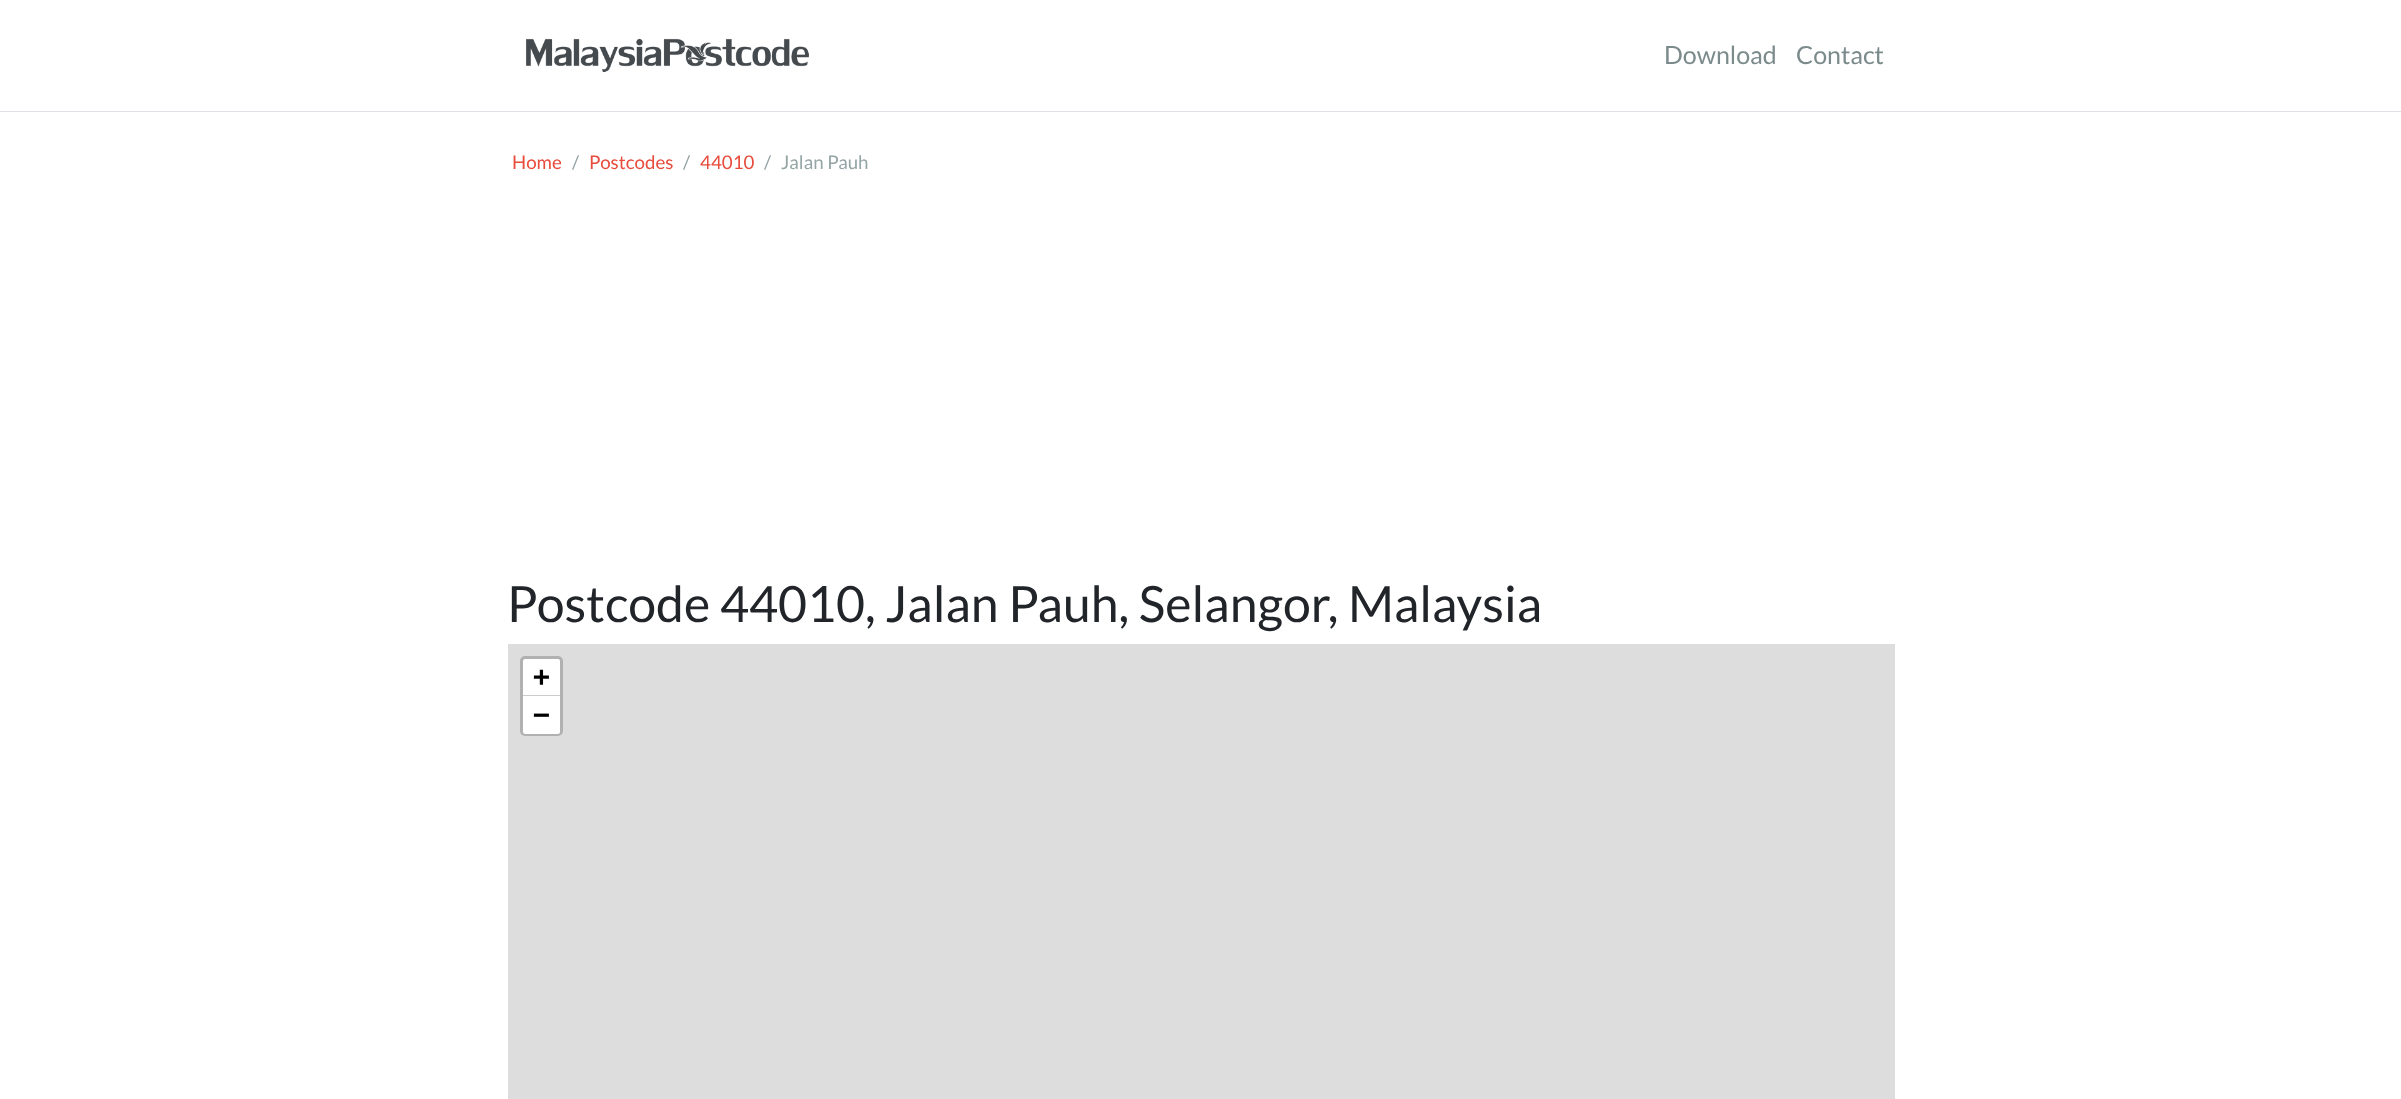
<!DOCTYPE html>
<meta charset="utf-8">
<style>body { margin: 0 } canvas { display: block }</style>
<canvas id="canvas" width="2401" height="1099"></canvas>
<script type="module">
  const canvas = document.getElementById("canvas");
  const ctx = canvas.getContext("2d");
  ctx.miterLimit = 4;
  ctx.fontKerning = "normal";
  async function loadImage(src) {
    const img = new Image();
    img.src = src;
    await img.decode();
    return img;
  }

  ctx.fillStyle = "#ffffff";
  ctx.fillRect(0, 0, 2401, 1099);
  ctx.fillStyle = "#dee2e6";
  ctx.fillRect(0, 111, 2401, 1);
  ctx.drawImage(await loadImage("img1.png"), 526, 38, 283, 34);
  ctx.font = "25px Lato";
  ctx.fillStyle = "#7b8a8b";
  ctx.fillText("Download", 1664, 64);
  ctx.fillText("Contact", 1796, 64);
  ctx.font = "18.75px Lato";
  ctx.fillStyle = "#e74c3c";
  ctx.fillText("Home", 512, 169);
  ctx.fillStyle = "#95a5a6";
  ctx.fillText("/", 572, 169);
  ctx.fillStyle = "#e74c3c";
  ctx.fillText("Postcodes", 589, 169);
  ctx.fillStyle = "#95a5a6";
  ctx.fillText("/", 683, 169);
  ctx.fillStyle = "#e74c3c";
  ctx.fillText("44010", 700, 169);
  ctx.fillStyle = "#95a5a6";
  ctx.fillText("/", 764, 169);
  ctx.fillText("Jalan Pauh", 781, 169);
  ctx.font = "50px Lato";
  ctx.fillStyle = "#212529";
  ctx.fillText("Postcode 44010, Jalan Pauh, Selangor, Malaysia", 507, 622);
  ctx.fillStyle = "#dddddd";
  ctx.fillRect(508, 644, 1387, 455);
  ctx.beginPath();
  ctx.roundRect(521.5, 657.5, 40, 77, 3.5);
  ctx.strokeStyle = "#b1b1b1";
  ctx.lineWidth = 3;
  ctx.stroke();
  ctx.fillStyle = "#ffffff";
  ctx.beginPath();
  ctx.roundRect(523, 659, 37, 37, [2.5, 2.5, 0, 0]);
  ctx.fill();
  ctx.fillStyle = "#cccccc";
  ctx.fillRect(523, 695, 37, 1);
  ctx.font = "bold 28px DejaVu Sans Mono";
  ctx.fillStyle = "#000000";
  ctx.fillText("+", 533, 686);
  ctx.fillStyle = "#ffffff";
  ctx.beginPath();
  ctx.roundRect(523, 696, 37, 38, [0, 0, 2.5, 2.5]);
  ctx.fill();
  ctx.fillStyle = "#000000";
  ctx.fillText("−", 533, 724);
</script>
